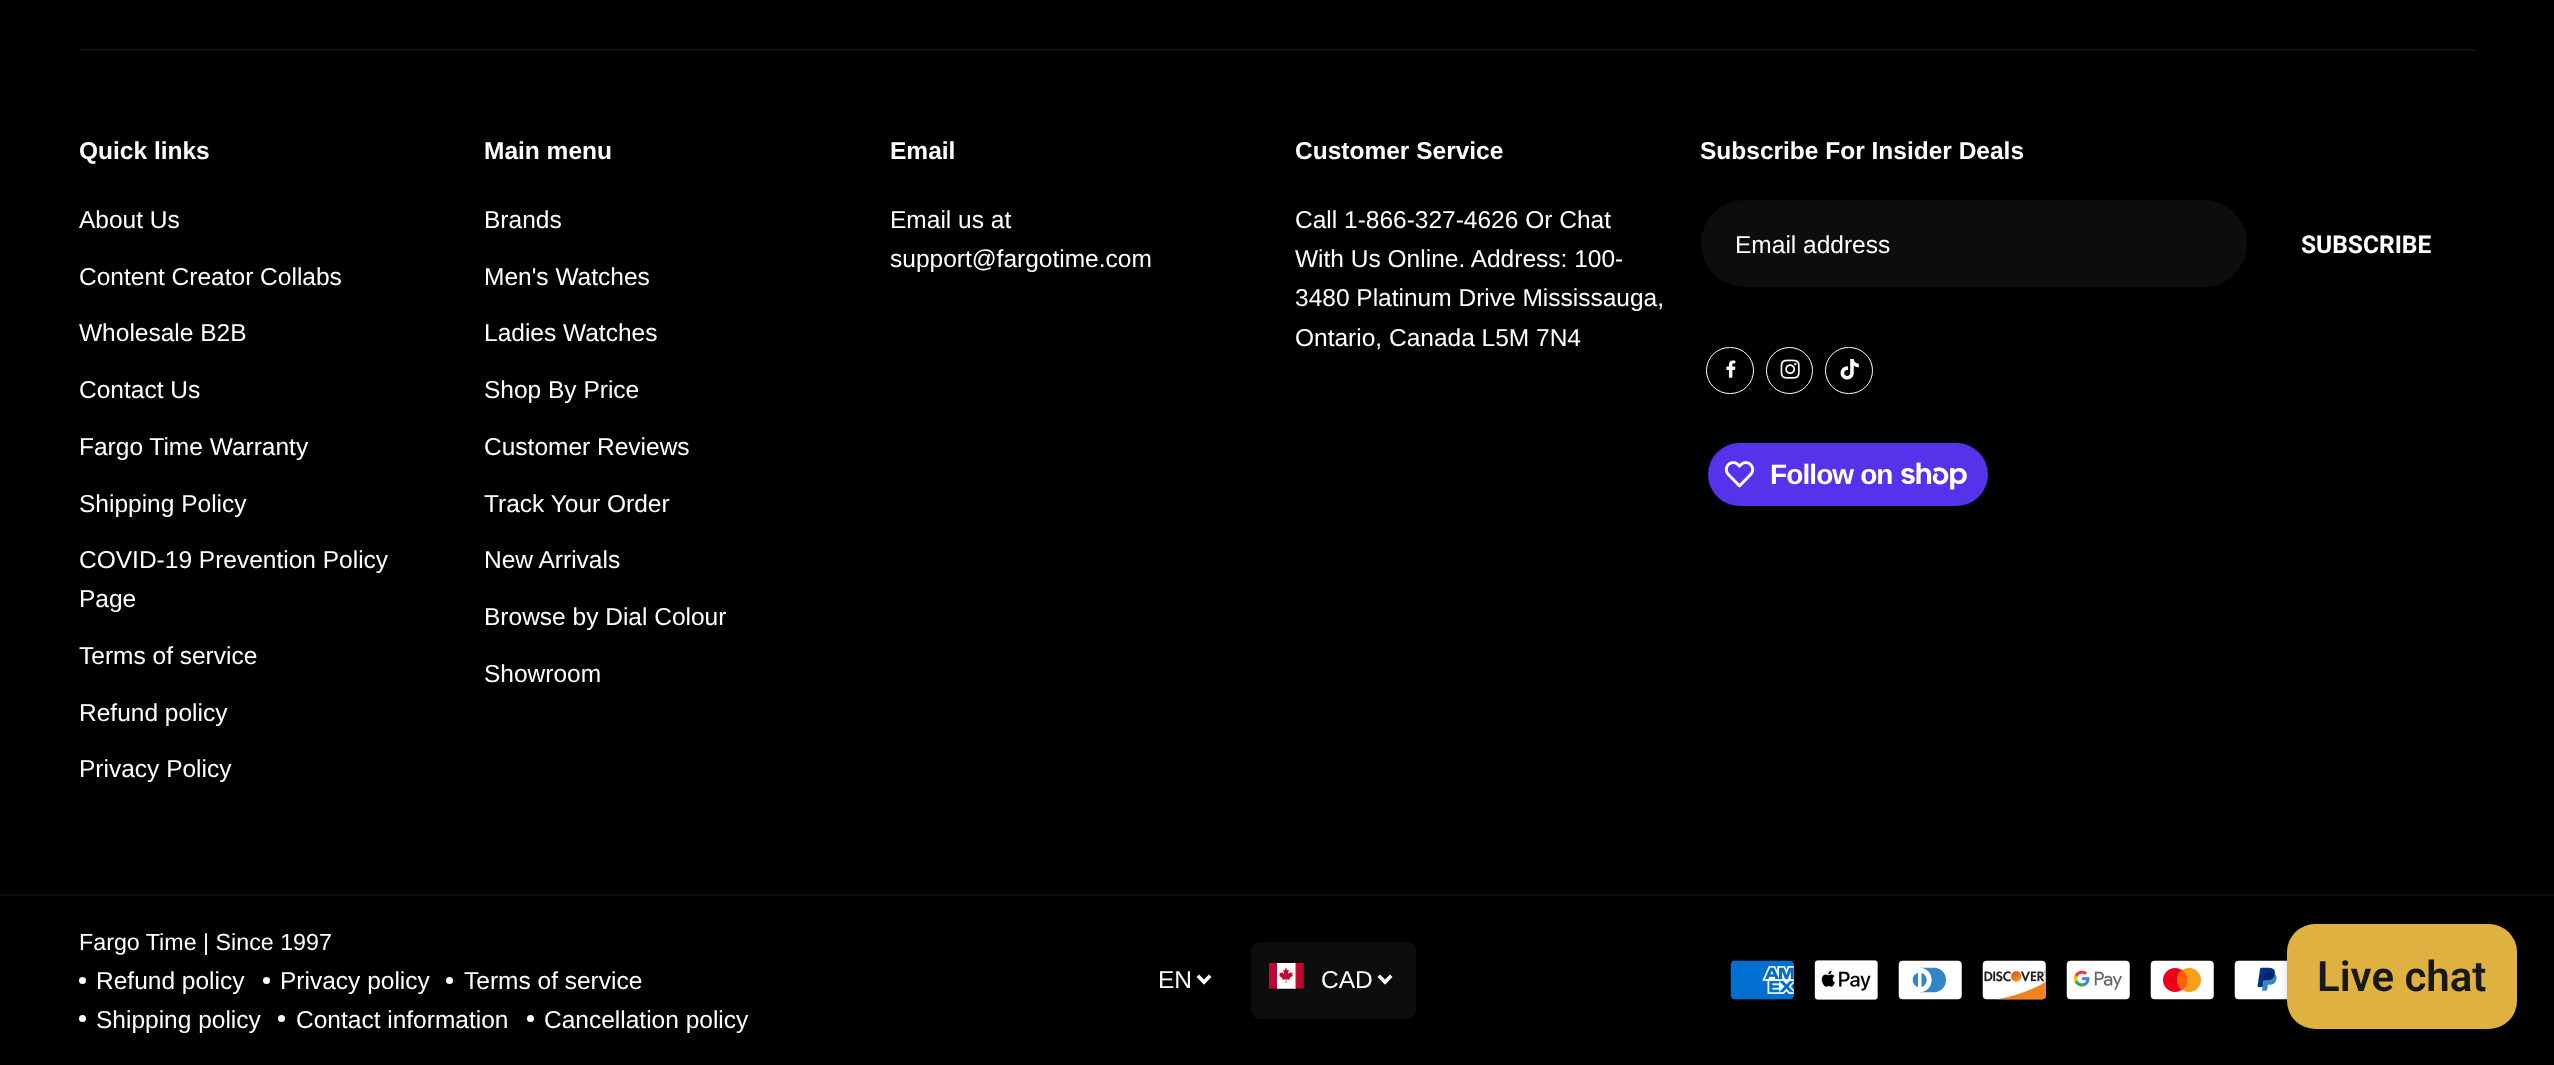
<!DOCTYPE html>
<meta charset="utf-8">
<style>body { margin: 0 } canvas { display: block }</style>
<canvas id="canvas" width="2554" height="1065"></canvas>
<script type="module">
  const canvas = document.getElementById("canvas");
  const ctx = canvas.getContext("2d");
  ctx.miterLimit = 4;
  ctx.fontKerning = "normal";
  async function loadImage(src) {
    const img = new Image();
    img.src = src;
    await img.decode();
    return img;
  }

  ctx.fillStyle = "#000000";
  ctx.fillRect(0, 0, 2554, 1065);
  ctx.fillStyle = "#0d0d0d";
  ctx.fillRect(79, 49, 2397, 2);
  ctx.font = "bold 24.5px Liberation Sans";
  ctx.fillStyle = "#ffffff";
  ctx.fillText("Quick links", 79, 159);
  ctx.font = "24.5px Liberation Sans";
  ctx.fillText("About Us", 79, 228);
  ctx.fillText("Content Creator Collabs", 79, 285);
  ctx.fillText("Wholesale B2B", 79, 341);
  ctx.fillText("Contact Us", 79, 398);
  ctx.fillText("Fargo Time Warranty", 79, 455);
  ctx.fillText("Shipping Policy", 79, 512);
  ctx.fillText("COVID-19 Prevention Policy", 79, 568);
  ctx.fillText("Page", 79, 607);
  ctx.fillText("Terms of service", 79, 664);
  ctx.fillText("Refund policy", 79, 721);
  ctx.fillText("Privacy Policy", 79, 777);
  ctx.font = "bold 24.5px Liberation Sans";
  ctx.fillText("Main menu", 484, 159);
  ctx.font = "24.5px Liberation Sans";
  ctx.fillText("Brands", 484, 228);
  ctx.fillText("Men's Watches", 484, 285);
  ctx.fillText("Ladies Watches", 484, 341);
  ctx.fillText("Shop By Price", 484, 398);
  ctx.fillText("Customer Reviews", 484, 455);
  ctx.fillText("Track Your Order", 484, 512);
  ctx.fillText("New Arrivals", 484, 568);
  ctx.fillText("Browse by Dial Colour", 484, 625);
  ctx.fillText("Showroom", 484, 682);
  ctx.font = "bold 24.5px Liberation Sans";
  ctx.fillText("Email", 890, 159);
  ctx.font = "24.5px Liberation Sans";
  ctx.fillText("Email us at", 890, 228);
  ctx.fillText("support@fargotime.com", 890, 267);
  ctx.font = "bold 24.5px Liberation Sans";
  ctx.fillText("Customer Service", 1295, 159);
  ctx.font = "24.5px Liberation Sans";
  ctx.fillText("Call 1-866-327-4626 Or Chat", 1295, 228);
  ctx.fillText("With Us Online. Address: 100-", 1295, 267);
  ctx.fillText("3480 Platinum Drive Mississauga,", 1295, 306);
  ctx.fillText("Ontario, Canada L5M 7N4", 1295, 346);
  ctx.font = "bold 24.5px Liberation Sans";
  ctx.fillText("Subscribe For Insider Deals", 1700, 159);
  ctx.fillStyle = "#0d0d0d";
  ctx.beginPath();
  ctx.roundRect(1701, 200, 546, 87, 43.5);
  ctx.fill();
  ctx.font = "24.5px Liberation Sans";
  ctx.fillStyle = "#ffffff";
  ctx.fillText("Email address", 1735, 253);
  ctx.font = "bold 24.5px Roboto";
  ctx.fillText("SUBSCRIBE", 2301, 253);
  ctx.beginPath();
  ctx.roundRect(1706.5, 347.5, 47, 46, 23);
  ctx.strokeStyle = "#ffffff";
  ctx.stroke();
  ctx.drawImage(await loadImage("img1.png"), 1726, 360, 10, 18);
  ctx.beginPath();
  ctx.arc(1789.5, 370.5, 23, 0, Math.PI * 2);
  ctx.stroke();
  ctx.drawImage(await loadImage("img2.png"), 1780, 359, 20, 20);
  ctx.beginPath();
  ctx.roundRect(1825.5, 347.5, 47, 46, 23);
  ctx.stroke();
  ctx.drawImage(await loadImage("img3.png"), 1840, 359, 19, 21);
  ctx.fillStyle = "#5433eb";
  ctx.beginPath();
  ctx.roundRect(1708, 443, 280, 63, 31.5);
  ctx.fill();
  ctx.drawImage(await loadImage("img4.png"), 1724, 461, 31, 27);
  ctx.letterSpacing = "-0.9px";
  ctx.font = "bold 28px Liberation Sans";
  ctx.fillStyle = "#ffffff";
  ctx.fillText("Follow on", 1770, 484);
  ctx.drawImage(await loadImage("img5.png"), 1901, 462, 66, 28);
  ctx.fillStyle = "#0d0d0d";
  ctx.fillRect(0, 894, 2554, 2);
  ctx.letterSpacing = "0px";
  ctx.font = "23.25px Liberation Sans";
  ctx.fillStyle = "#ffffff";
  ctx.fillText("Fargo Time | Since 1997", 79, 950);
  ctx.beginPath();
  ctx.arc(82.5, 980.5, 3.5, 0, Math.PI * 2);
  ctx.fill();
  ctx.font = "24.5px Liberation Sans";
  ctx.fillText("Refund policy", 96, 989);
  ctx.beginPath();
  ctx.arc(266.5, 980.5, 3.5, 0, Math.PI * 2);
  ctx.fill();
  ctx.fillText("Privacy policy", 280, 989);
  ctx.beginPath();
  ctx.arc(449.5, 980.5, 3.5, 0, Math.PI * 2);
  ctx.fill();
  ctx.fillText("Terms of service", 464, 989);
  ctx.beginPath();
  ctx.arc(82.5, 1018.5, 3.5, 0, Math.PI * 2);
  ctx.fill();
  ctx.fillText("Shipping policy", 96, 1028);
  ctx.beginPath();
  ctx.arc(281.5, 1018.5, 3.5, 0, Math.PI * 2);
  ctx.fill();
  ctx.fillText("Contact information", 296, 1028);
  ctx.beginPath();
  ctx.arc(530.5, 1018.5, 3.5, 0, Math.PI * 2);
  ctx.fill();
  ctx.fillText("Cancellation policy", 544, 1028);
  ctx.fillText("EN", 1158, 988);
  ctx.beginPath();
  ctx.moveTo(1209, 974.5);
  ctx.lineTo(1211.5, 977);
  ctx.lineTo(1204, 984.5);
  ctx.lineTo(1201.5, 982);
  ctx.closePath();
  ctx.fill();
  ctx.beginPath();
  ctx.moveTo(1199, 974.5);
  ctx.lineTo(1206.5, 982);
  ctx.lineTo(1204, 984.5);
  ctx.lineTo(1196.5, 977);
  ctx.closePath();
  ctx.fill();
  ctx.fillStyle = "#0d0d0d";
  ctx.beginPath();
  ctx.roundRect(1251, 942, 165, 77, 9);
  ctx.fill();
  ctx.drawImage(await loadImage("img6.png"), 1269, 963, 35, 26);
  ctx.fillStyle = "#ffffff";
  ctx.fillText("CAD", 1321, 988);
  ctx.beginPath();
  ctx.moveTo(1390, 974.5);
  ctx.lineTo(1392.5, 977);
  ctx.lineTo(1385, 984.5);
  ctx.lineTo(1382.5, 982);
  ctx.closePath();
  ctx.fill();
  ctx.beginPath();
  ctx.moveTo(1380, 974.5);
  ctx.lineTo(1387.5, 982);
  ctx.lineTo(1385, 984.5);
  ctx.lineTo(1377.5, 977);
  ctx.closePath();
  ctx.fill();
  ctx.drawImage(await loadImage("img7.png"), 1730, 960, 64, 40);
  ctx.drawImage(await loadImage("img8.png"), 1814, 960, 64, 40);
  ctx.drawImage(await loadImage("img9.png"), 1898, 960, 64, 40);
  ctx.drawImage(await loadImage("img10.png"), 1982, 960, 64, 40);
  ctx.drawImage(await loadImage("img11.png"), 2066, 960, 64, 40);
  ctx.drawImage(await loadImage("img12.png"), 2150, 960, 64, 40);
  ctx.drawImage(await loadImage("img13.png"), 2234, 960, 53, 40);
  ctx.fillStyle = "rgba(0, 0, 0, 0.15)";
  ctx.filter = "blur(4.5px)";
  ctx.beginPath();
  ctx.roundRect(2287, 924, 230, 105, 28);
  ctx.fill();
  ctx.filter = "none";
  ctx.fillStyle = "#deb140";
  ctx.beginPath();
  ctx.roundRect(2287, 924, 230, 105, 28);
  ctx.fill();
  ctx.font = "600 42px Roboto";
  ctx.fillStyle = "#181818";
  ctx.fillText("Live chat", 2317, 991);
</script>
